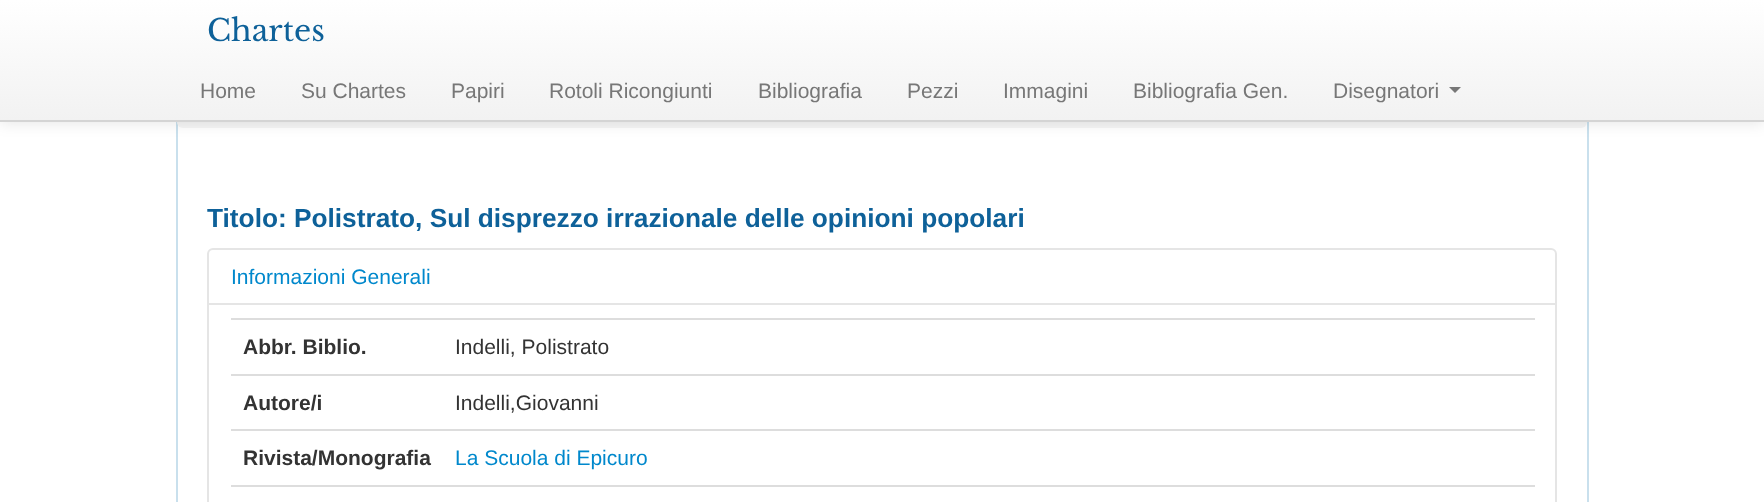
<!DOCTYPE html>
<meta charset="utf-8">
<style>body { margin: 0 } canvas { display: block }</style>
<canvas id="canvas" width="1764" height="502"></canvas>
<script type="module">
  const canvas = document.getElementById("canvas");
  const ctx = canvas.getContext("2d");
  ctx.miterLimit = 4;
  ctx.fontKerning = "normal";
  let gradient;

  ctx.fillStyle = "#ffffff";
  ctx.fillRect(0, 0, 1764, 502);
  ctx.strokeStyle = "#c9e0ed";
  ctx.lineWidth = 2;
  ctx.strokeRect(177, 9, 1411, 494);
  ctx.fillStyle = "#f5f5f5";
  ctx.beginPath();
  ctx.roundRect(177, 74, 1410, 54, 6);
  ctx.fill();
  ctx.fillStyle = "rgba(0, 0, 0, 0.1)";
  ctx.filter = "blur(7.5px)";
  ctx.beginPath();
  ctx.rect(0, 2, 1764, 121);
  ctx.fill();
  ctx.filter = "none";
  gradient = ctx.createLinearGradient(882, 0, 882, 120);
  gradient.addColorStop(0, "#ffffff");
  gradient.addColorStop(1, "#f2f2f2");
  ctx.fillStyle = gradient;
  ctx.fillRect(0, 0, 1764, 120);
  ctx.fillStyle = "#d4d4d4";
  ctx.fillRect(0, 120, 1764, 2);
  ctx.font = "30px Libre Baskerville";
  ctx.fillStyle = "#0e6199";
  ctx.fillText("Chartes", 207, 41);
  ctx.font = "21px Liberation Sans";
  ctx.fillStyle = "#777777";
  ctx.fillText("Home", 200, 98);
  ctx.fillText("Su Chartes", 301, 98);
  ctx.fillText("Papiri", 451, 98);
  ctx.fillText("Rotoli Ricongiunti", 549, 98);
  ctx.fillText("Bibliografia", 758, 98);
  ctx.fillText("Pezzi", 907, 98);
  ctx.fillText("Immagini", 1003, 98);
  ctx.fillText("Bibliografia Gen.", 1133, 98);
  ctx.fillText("Disegnatori", 1333, 98);
  ctx.beginPath();
  ctx.moveTo(1449, 87);
  ctx.lineTo(1461, 87);
  ctx.lineTo(1455, 93);
  ctx.closePath();
  ctx.fill();
  ctx.font = "bold 26.25px Liberation Sans";
  ctx.fillStyle = "#0e6199";
  ctx.fillText("Titolo: Polistrato, Sul disprezzo irrazionale delle opinioni popolari", 207, 227);
  ctx.beginPath();
  ctx.roundRect(208, 249, 1348, 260, 5);
  ctx.strokeStyle = "#e5e5e5";
  ctx.stroke();
  ctx.font = "21px Liberation Sans";
  ctx.fillStyle = "#0088cc";
  ctx.fillText("Informazioni Generali", 231, 284);
  ctx.fillStyle = "#e5e5e5";
  ctx.fillRect(209, 303, 1347, 2);
  ctx.font = "bold 21px Liberation Sans";
  ctx.fillStyle = "#333333";
  ctx.fillText("Abbr. Biblio.", 243, 354);
  ctx.fillStyle = "#dddddd";
  ctx.fillRect(231, 318, 1304, 2);
  ctx.font = "21px Liberation Sans";
  ctx.fillStyle = "#333333";
  ctx.fillText("Indelli, Polistrato", 455, 354);
  ctx.font = "bold 21px Liberation Sans";
  ctx.fillText("Autore/i", 243, 410);
  ctx.fillStyle = "#dddddd";
  ctx.fillRect(231, 374, 1304, 2);
  ctx.font = "21px Liberation Sans";
  ctx.fillStyle = "#333333";
  ctx.fillText("Indelli,Giovanni", 455, 410);
  ctx.font = "bold 21px Liberation Sans";
  ctx.fillText("Rivista/Monografia", 243, 465);
  ctx.fillStyle = "#dddddd";
  ctx.fillRect(231, 429, 1304, 2);
  ctx.font = "21px Liberation Sans";
  ctx.fillStyle = "#0088cc";
  ctx.fillText("La Scuola di Epicuro", 455, 465);
  ctx.fillStyle = "#dddddd";
  ctx.fillRect(231, 485, 1304, 2);
</script>
